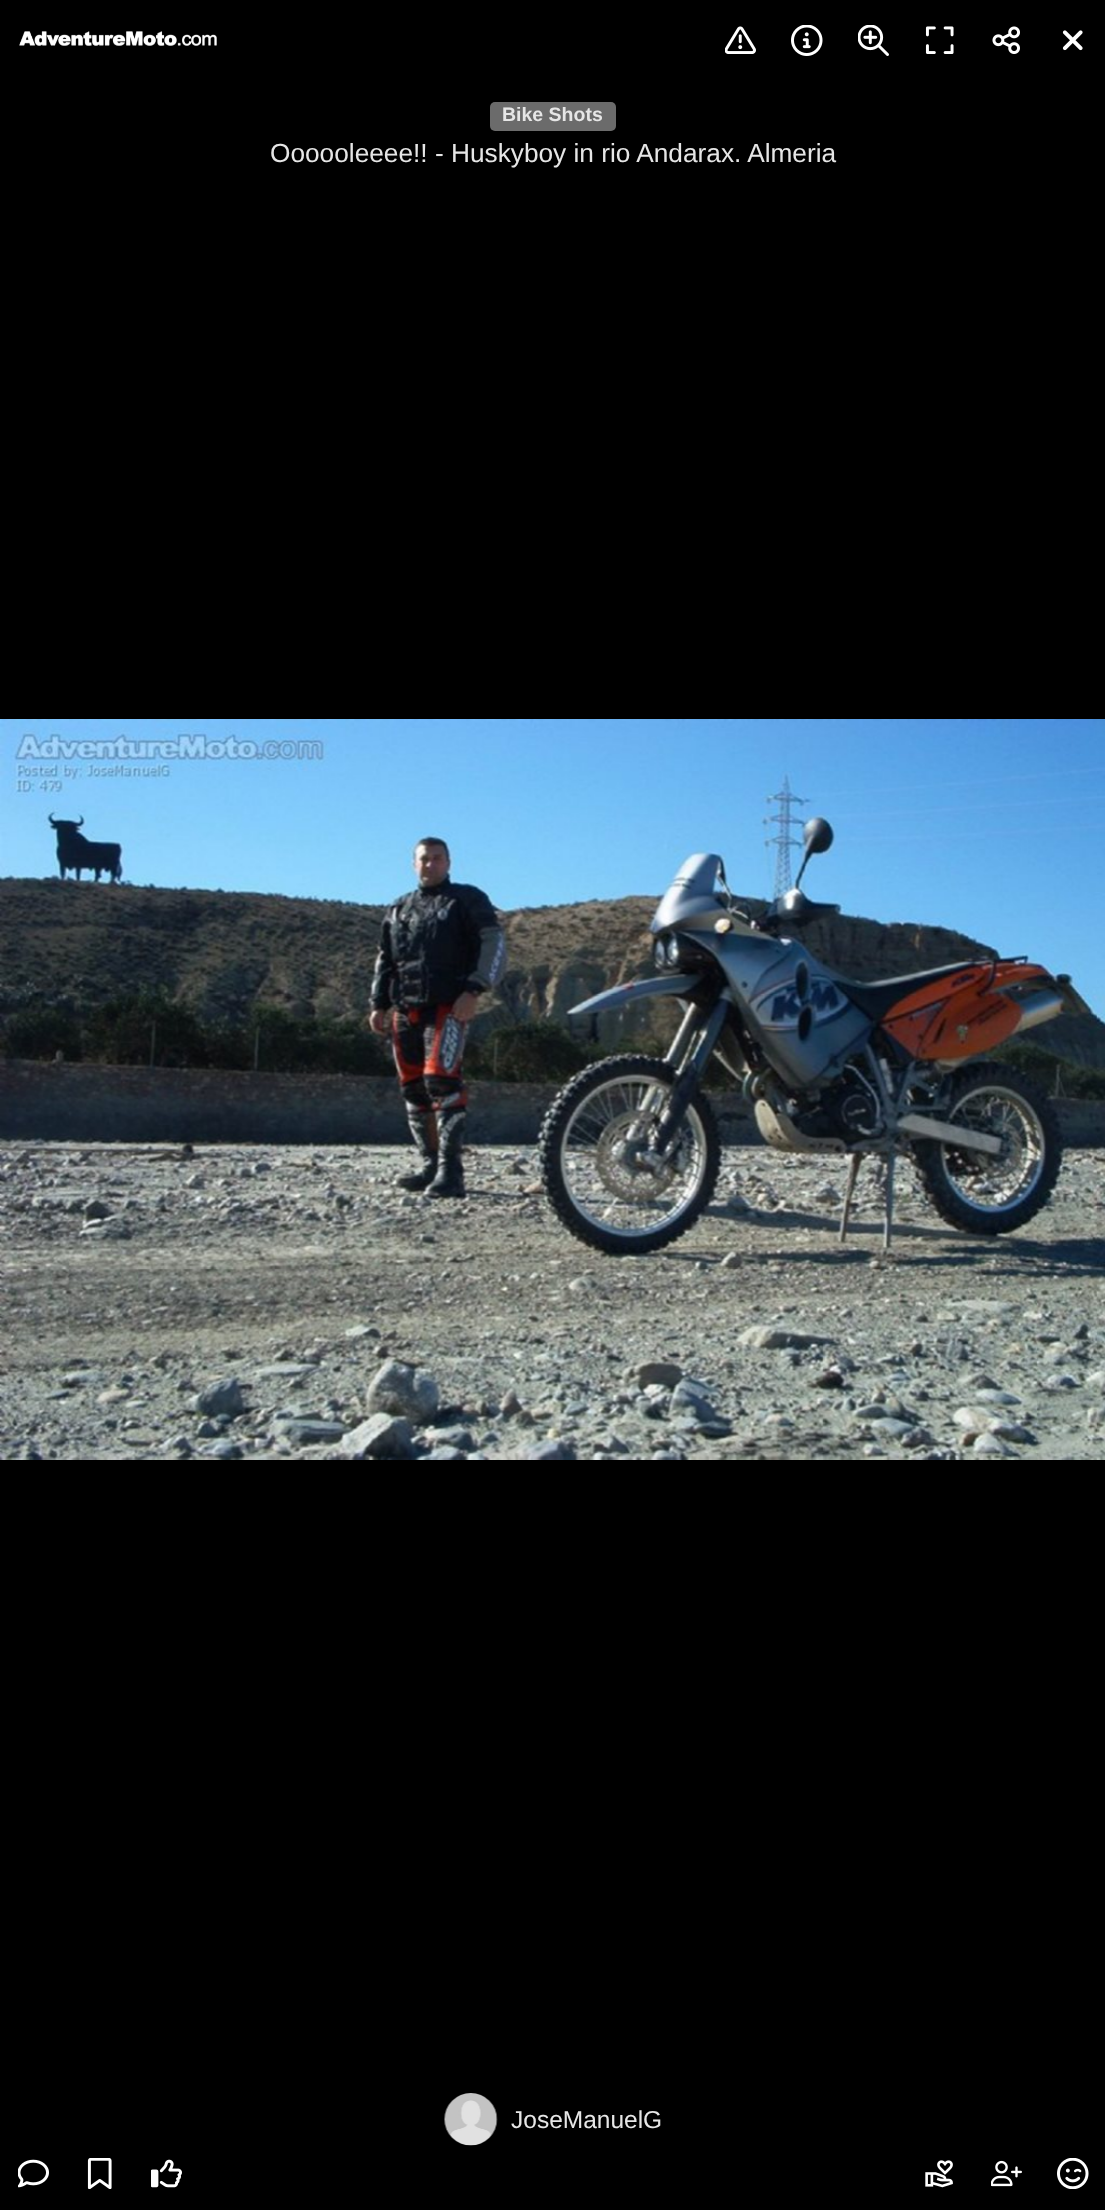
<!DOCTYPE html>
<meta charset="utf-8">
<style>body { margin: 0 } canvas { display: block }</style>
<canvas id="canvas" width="1105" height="2210"></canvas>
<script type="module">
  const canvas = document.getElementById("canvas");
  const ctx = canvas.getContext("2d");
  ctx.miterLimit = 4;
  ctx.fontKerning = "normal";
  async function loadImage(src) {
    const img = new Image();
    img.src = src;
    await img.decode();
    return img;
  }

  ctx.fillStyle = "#000000";
  ctx.fillRect(0, 0, 1105, 2210);
  ctx.drawImage(await loadImage("img1.png"), 19, 31, 198, 15);
  ctx.drawImage(await loadImage("img2.png"), 725, 26, 31, 28);
  ctx.drawImage(await loadImage("img3.png"), 791, 25, 32, 31);
  ctx.drawImage(await loadImage("img4.png"), 858, 25, 31, 31);
  ctx.drawImage(await loadImage("img5.png"), 925, 26, 29, 28);
  ctx.drawImage(await loadImage("img6.png"), 992, 26, 28, 28);
  ctx.drawImage(await loadImage("img7.png"), 1062, 30, 21, 21);
  ctx.fillStyle = "#6b6b6b";
  ctx.beginPath();
  ctx.roundRect(490, 102, 126, 29, 5);
  ctx.fill();
  ctx.font = "bold 19.5px Liberation Sans";
  ctx.fillStyle = "#e6e6e6";
  ctx.fillText("Bike Shots", 502, 121);
  ctx.font = "26.25px Liberation Sans";
  ctx.fillText("Oooooleeee!! - Huskyboy in rio Andarax. Almeria", 270, 162);
  ctx.drawImage(await loadImage("img8.png"), 444, 2093, 54, 53);
  ctx.font = "24.5px Liberation Sans";
  ctx.fillText("JoseManuelG", 511, 2128);
  ctx.drawImage(await loadImage("img9.png"), 18, 2159, 31, 29);
  ctx.drawImage(await loadImage("img10.png"), 87, 2158, 25, 31);
  ctx.drawImage(await loadImage("img11.png"), 151, 2159, 31, 29);
  ctx.drawImage(await loadImage("img12.png"), 925, 2160, 28, 28);
  ctx.drawImage(await loadImage("img13.png"), 991, 2160, 31, 27);
  ctx.drawImage(await loadImage("img14.png"), 1057, 2158, 32, 31);
  ctx.drawImage(await loadImage("img15.png"), 0, 719, 1105, 741);
</script>
